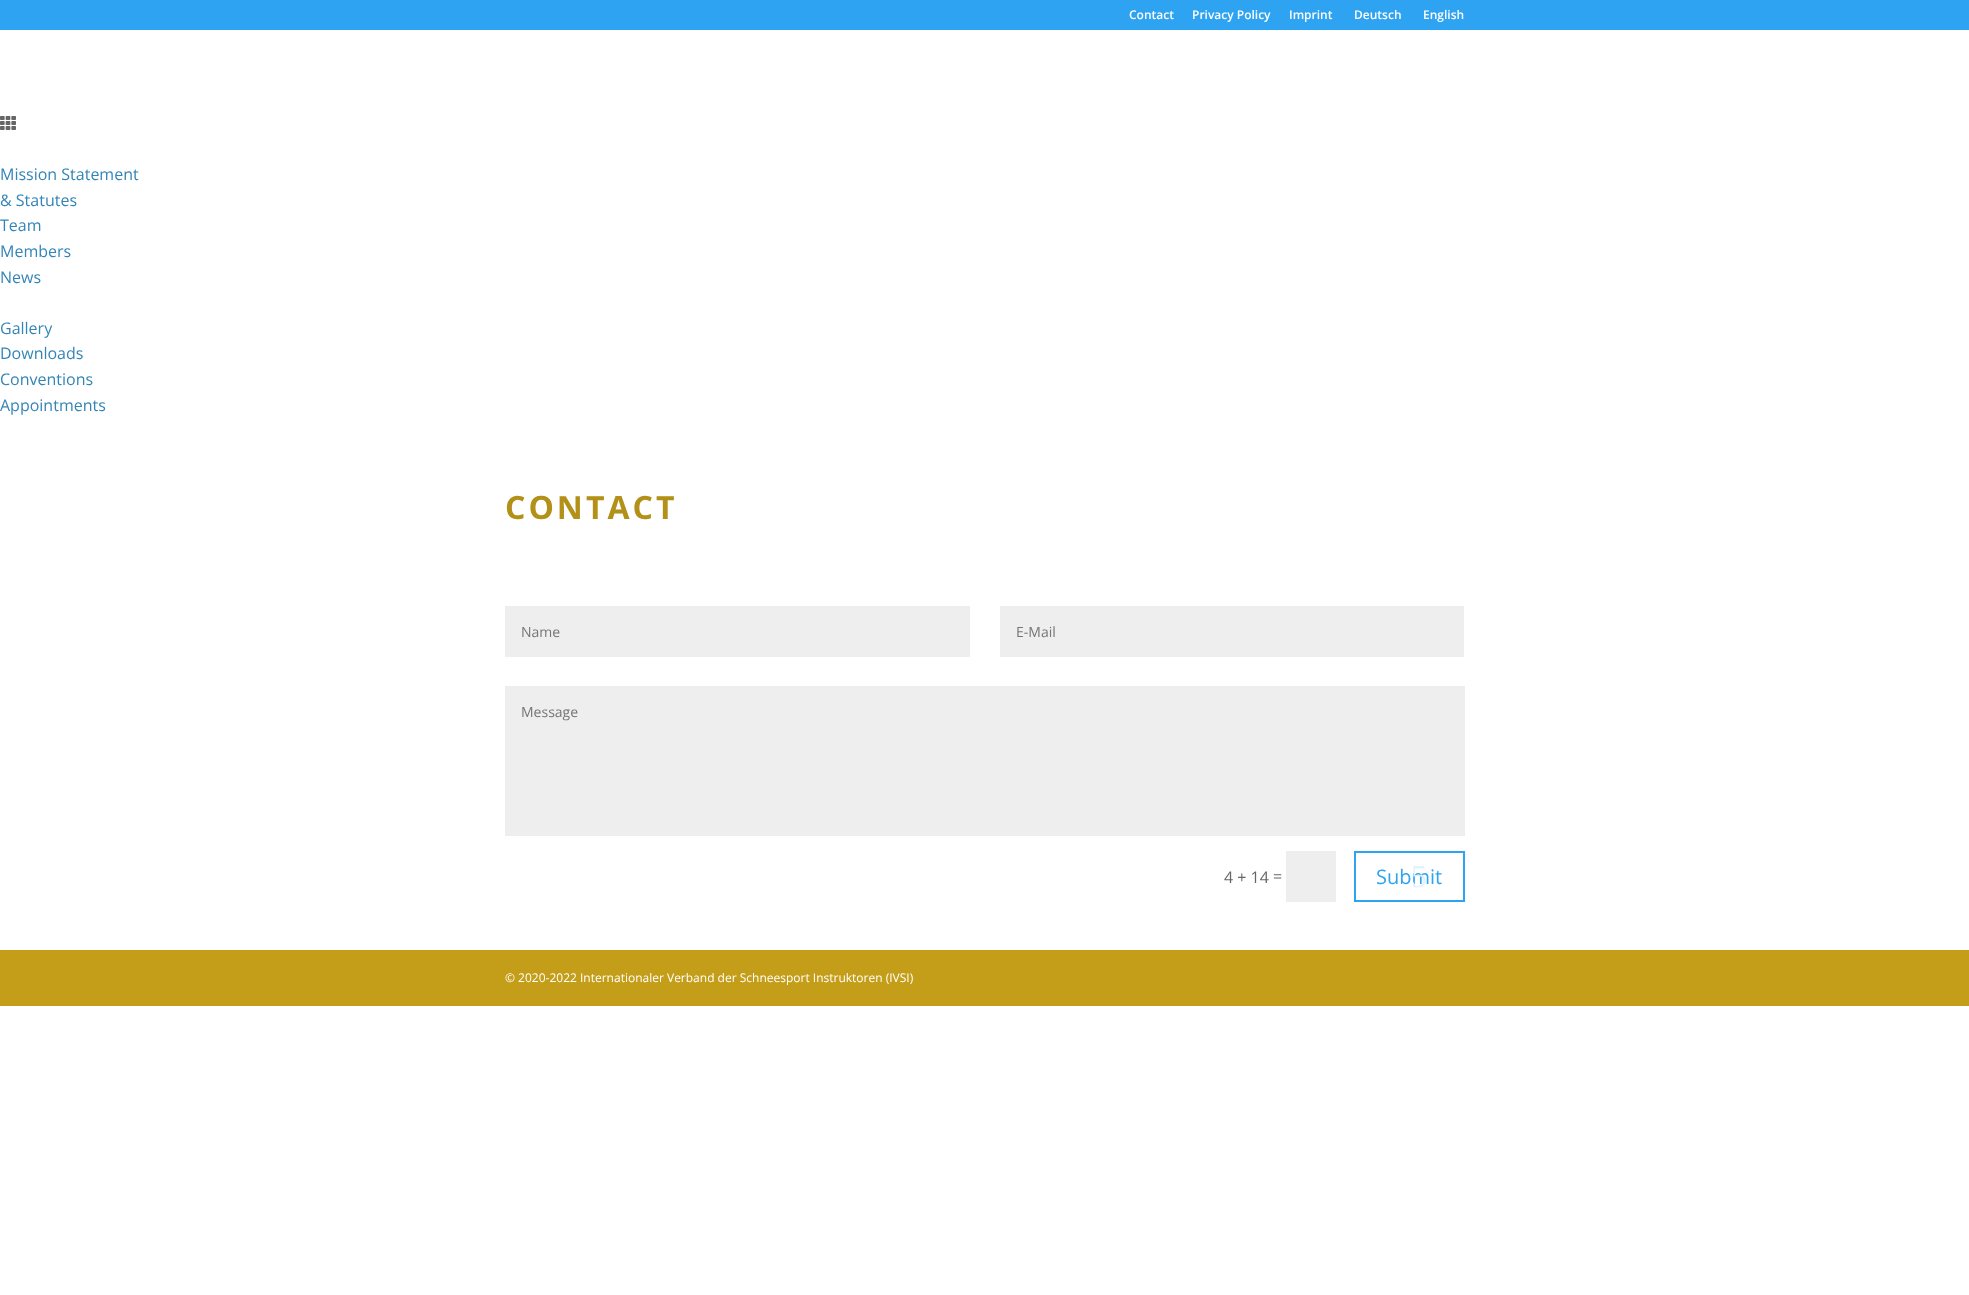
<!DOCTYPE html>
<meta charset="utf-8">
<style>body { margin: 0 } canvas { display: block }</style>
<canvas id="canvas" width="1969" height="1295"></canvas>
<script type="module">
  const canvas = document.getElementById("canvas");
  const ctx = canvas.getContext("2d");
  ctx.miterLimit = 4;
  ctx.fontKerning = "normal";
  async function loadImage(src) {
    const img = new Image();
    img.src = src;
    await img.decode();
    return img;
  }

  ctx.fillStyle = "#ffffff";
  ctx.fillRect(0, 0, 1969, 1295);
  ctx.fillStyle = "#2ea3f2";
  ctx.fillRect(0, 0, 1969, 30);
  ctx.font = "600 12px Open Sans";
  ctx.fillStyle = "#ffffff";
  ctx.fillText("Contact", 1129, 19);
  ctx.fillText("Privacy Policy", 1192, 19);
  ctx.fillText("Imprint", 1289, 19);
  ctx.fillText("Deutsch", 1354, 19);
  ctx.fillText("English", 1423, 19);
  ctx.drawImage(await loadImage("img1.png"), 0, 116, 16, 14);
  ctx.font = "16px Open Sans";
  ctx.fillStyle = "#3485b7";
  ctx.fillText("Mission Statement", 0, 180);
  ctx.fillText("& Statutes", 0, 206);
  ctx.fillText("Team", 0, 231);
  ctx.fillText("Members", 0, 257);
  ctx.fillText("News", 0, 283);
  ctx.fillText("Gallery", 0, 334);
  ctx.fillText("Downloads", 0, 359);
  ctx.fillText("Conventions", 0, 385);
  ctx.fillText("Appointments", 0, 411);
  ctx.letterSpacing = "3px";
  ctx.font = "bold 32px Open Sans";
  ctx.fillStyle = "#b39017";
  ctx.fillText("CONTACT", 505, 519);
  ctx.fillStyle = "#eeeeee";
  ctx.fillRect(505, 606, 465, 51);
  ctx.letterSpacing = "0px";
  ctx.font = "14px Open Sans";
  ctx.fillStyle = "#757575";
  ctx.fillText("Name", 521, 637);
  ctx.fillStyle = "#eeeeee";
  ctx.fillRect(1000, 606, 464, 51);
  ctx.fillStyle = "#757575";
  ctx.fillText("E-Mail", 1016, 637);
  ctx.fillStyle = "#eeeeee";
  ctx.fillRect(505, 686, 960, 150);
  ctx.fillStyle = "#757575";
  ctx.fillText("Message", 521, 717);
  ctx.font = "16px Open Sans";
  ctx.fillStyle = "#666666";
  ctx.fillText("4 + 14", 1224, 883);
  ctx.fillText("=", 1273, 882);
  ctx.fillStyle = "#eeeeee";
  ctx.fillRect(1286, 851, 50, 51);
  ctx.strokeStyle = "#2ea3f2";
  ctx.lineWidth = 2;
  ctx.strokeRect(1355, 852, 109, 49);
  ctx.font = "20px Open Sans";
  ctx.fillStyle = "#2ea3f2";
  ctx.fillText("Submit", 1376, 884);
  ctx.font = "32px Liberation Serif";
  ctx.fillStyle = "#e2f2fd";
  ctx.fillText("5", 1411, 887);
  ctx.fillStyle = "#c49e19";
  ctx.fillRect(0, 950, 1969, 56);
  ctx.font = "12px Open Sans";
  ctx.fillStyle = "#ffffff";
  ctx.fillText("© 2020-2022 Internationaler Verband der Schneesport Instruktoren (IVSI)", 505, 982);
</script>
